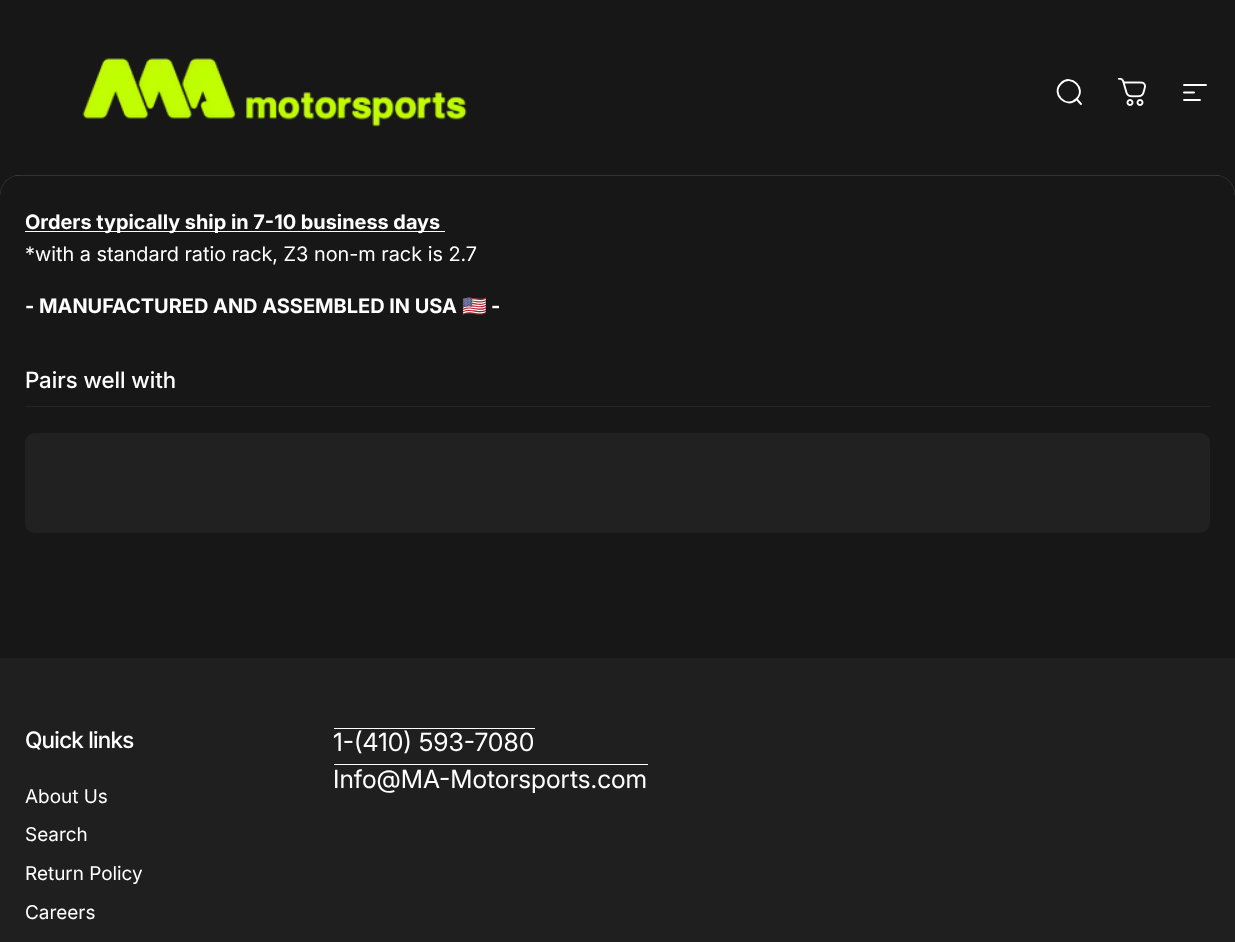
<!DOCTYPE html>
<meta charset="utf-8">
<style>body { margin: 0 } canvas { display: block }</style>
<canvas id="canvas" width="1235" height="942"></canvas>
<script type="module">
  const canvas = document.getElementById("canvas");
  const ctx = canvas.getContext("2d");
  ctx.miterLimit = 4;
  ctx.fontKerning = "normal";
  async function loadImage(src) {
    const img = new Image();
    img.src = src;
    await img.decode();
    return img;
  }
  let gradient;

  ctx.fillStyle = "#1f1f1f";
  ctx.fillRect(0, 0, 1235, 942);
  ctx.fillStyle = "#171717";
  ctx.fillRect(0, 0, 1235, 175);
  ctx.drawImage(await loadImage("img1.png"), 82, 58, 385, 69);
  ctx.beginPath();
  ctx.moveTo(1081, 104);
  ctx.lineTo(1076.5, 99);
  ctx.moveTo(1076.5, 99);
  ctx.bezierCurveTo(1087, 89, 1071, 73, 1061, 83.5);
  ctx.bezierCurveTo(1050.5, 93.5, 1066.5, 109.5, 1076.5, 99);
  ctx.closePath();
  ctx.strokeStyle = "#ffffff";
  ctx.lineWidth = 1.9;
  ctx.lineCap = "round";
  ctx.stroke();
  ctx.drawImage(await loadImage("img2.png"), 1118, 78, 28, 28);
  ctx.beginPath();
  ctx.moveTo(1184, 85);
  ctx.lineTo(1206, 85);
  ctx.moveTo(1184, 92.5);
  ctx.lineTo(1194, 92.5);
  ctx.moveTo(1184, 100);
  ctx.lineTo(1200, 100);
  ctx.stroke();
  ctx.fillStyle = "#313131";
  ctx.fillRect(14, 175, 1207, 1);
  ctx.fillStyle = "#171717";
  ctx.fillRect(0, 176, 1235, 482);
  ctx.drawImage(await loadImage("img3.png"), 0, 175, 20, 20);
  ctx.drawImage(await loadImage("img4.png"), 1215, 175, 20, 20);
  ctx.fillStyle = "#ffffff";
  ctx.fillRect(25, 231, 420, 1);
  ctx.font = "bold 20px Inter";
  ctx.fillText("Orders typically ship in 7-10 business days", 25, 229);
  ctx.font = "20px 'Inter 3'";
  ctx.fillText("*with a standard ratio rack, Z3 non-m rack is 2.7", 25, 261);
  ctx.font = "bold 20px Inter";
  ctx.fillText("- MANUFACTURED AND ASSEMBLED IN USA", 25, 313);
  ctx.font = "bold 20px Noto Color Emoji";
  ctx.fillText("🇺🇸", 462, 313);
  ctx.font = "bold 20px 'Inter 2'";
  ctx.fillText("-", 491, 313);
  ctx.fillStyle = "#252525";
  ctx.fillRect(25, 406, 1185, 1);
  ctx.font = "500 22.5px 'Inter 2'";
  ctx.fillStyle = "#ffffff";
  ctx.fillText("Pairs well with", 25, 388);
  gradient = ctx.createLinearGradient(88, 76, 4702, 889);
  gradient.addColorStop(0.4, "#212121");
  gradient.addColorStop(0.63, "#313131");
  gradient.addColorStop(0.79, "#212121");
  ctx.fillStyle = gradient;
  ctx.beginPath();
  ctx.roundRect(25, 433, 1185, 100, 10);
  ctx.fill();
  ctx.letterSpacing = "-0.75px";
  ctx.font = "500 22.75px Inter";
  ctx.fillStyle = "#ffffff";
  ctx.fillText("Quick links", 25, 748);
  ctx.letterSpacing = "0px";
  ctx.font = "19px Inter";
  ctx.fillText("About Us", 25, 803);
  ctx.fillText("Search", 25, 841);
  ctx.fillText("Return Policy", 25, 880);
  ctx.fillText("Careers", 25, 919);
  ctx.fillRect(334, 728, 201, 1);
  ctx.font = "25px 'Inter 2'";
  ctx.fillText("1-(410) 593-7080", 333, 751);
  ctx.fillRect(334, 764, 314, 1);
  ctx.fillText("Info@MA-Motorsports.com", 333, 788);
</script>
